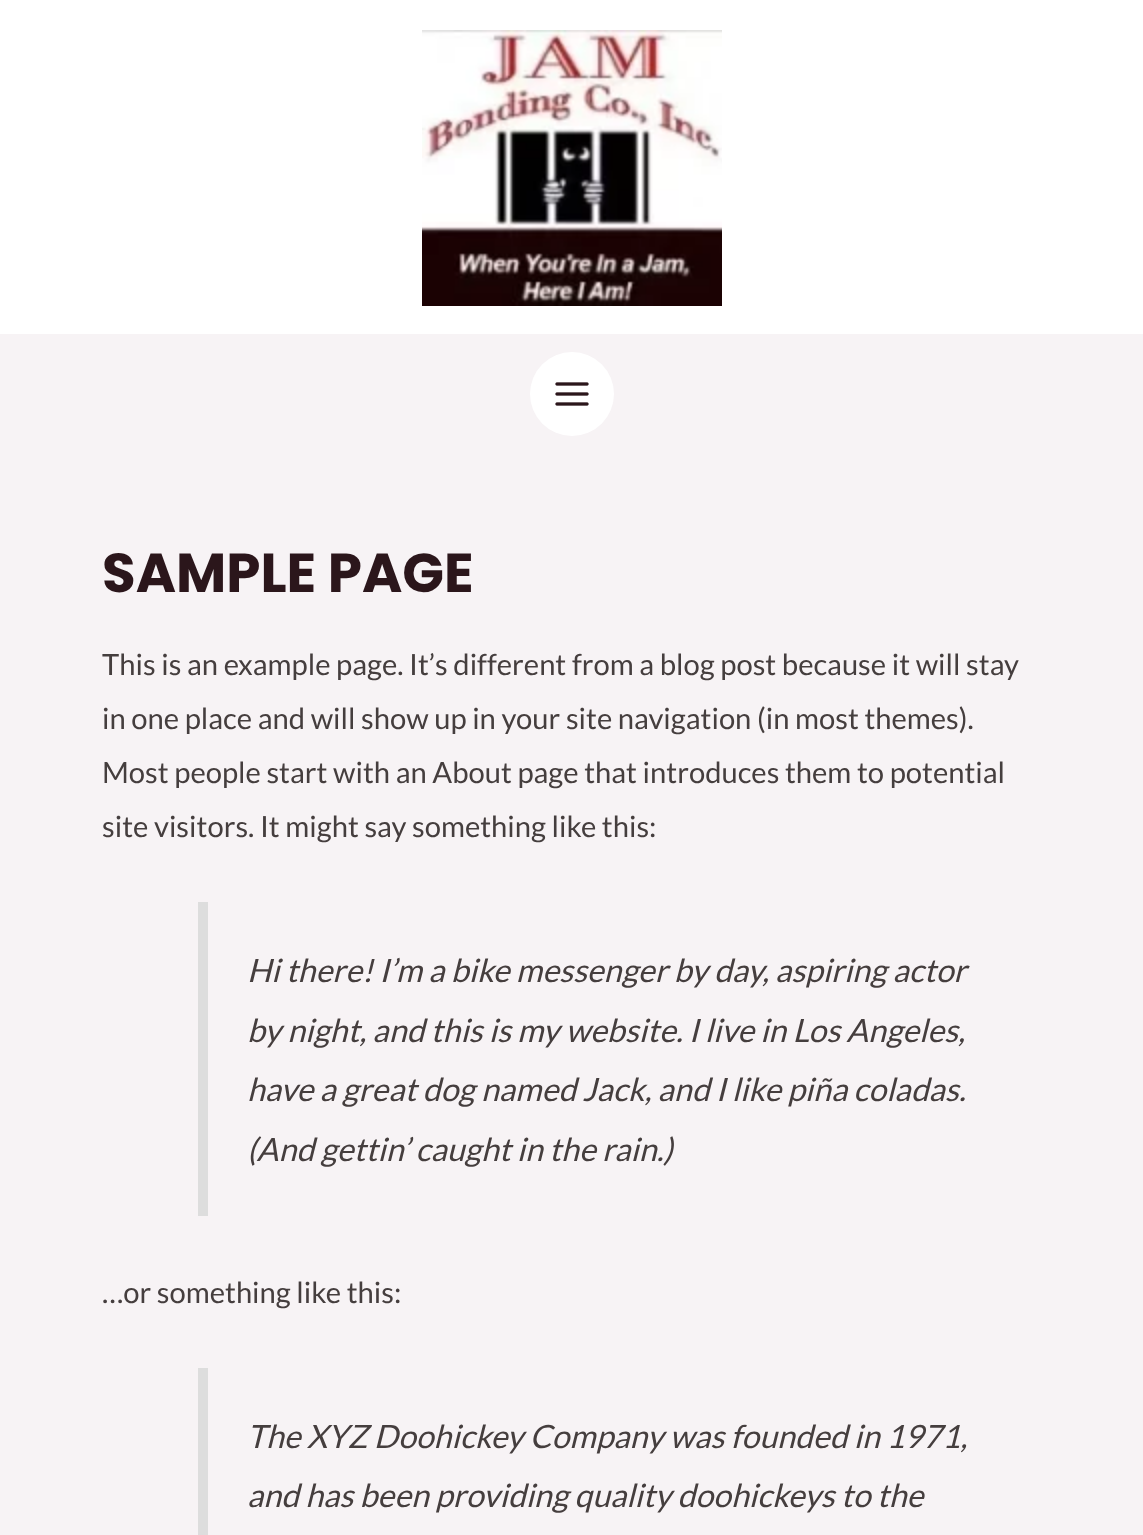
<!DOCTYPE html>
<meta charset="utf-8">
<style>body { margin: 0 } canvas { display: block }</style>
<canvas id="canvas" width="1143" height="1535"></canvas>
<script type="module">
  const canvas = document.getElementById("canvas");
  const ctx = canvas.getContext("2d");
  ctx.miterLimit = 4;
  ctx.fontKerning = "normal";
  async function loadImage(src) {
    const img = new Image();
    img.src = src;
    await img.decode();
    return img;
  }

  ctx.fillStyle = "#f7f3f5";
  ctx.fillRect(0, 0, 1143, 1535);
  ctx.fillStyle = "#ffffff";
  ctx.fillRect(0, 0, 1143, 334);
  ctx.drawImage(await loadImage("img1.png"), 422, 30, 300, 276);
  ctx.beginPath();
  ctx.arc(572, 394, 42, 0, Math.PI * 2);
  ctx.fill();
  ctx.drawImage(await loadImage("img2.png"), 555, 382, 34, 24);
  ctx.font = "bold 54.75px Poppins";
  ctx.fillStyle = "#2b161b";
  ctx.fillText("SAMPLE PAGE", 102, 592);
  ctx.font = "29.2px Lato";
  ctx.fillStyle = "#453e3e";
  ctx.fillText("This is an example page. It’s different from a blog post because it will stay", 102, 675);
  ctx.fillText("in one place and will show up in your site navigation (in most themes).", 102, 729);
  ctx.fillText("Most people start with an About page that introduces them to potential", 102, 783);
  ctx.fillText("site visitors. It might say something like this:", 102, 837);
  ctx.fillStyle = "#dddddd";
  ctx.fillRect(198, 902, 10, 314);
  ctx.font = "italic 32.1px Lato";
  ctx.fillStyle = "#453e3e";
  ctx.fillText("Hi there! I’m a bike messenger by day, aspiring actor", 247, 982);
  ctx.fillText("by night, and this is my website. I live in Los Angeles,", 247, 1042);
  ctx.fillText("have a great dog named Jack, and I like piña coladas.", 247, 1101);
  ctx.fillText("(And gettin’ caught in the rain.)", 247, 1161);
  ctx.font = "29.2px Lato";
  ctx.fillText("…or something like this:", 102, 1303);
  ctx.fillStyle = "#dddddd";
  ctx.fillRect(198, 1368, 10, 167);
  ctx.font = "italic 32.1px Lato";
  ctx.fillStyle = "#453e3e";
  ctx.fillText("The XYZ Doohickey Company was founded in 1971,", 247, 1448);
  ctx.fillText("and has been providing quality doohickeys to the", 247, 1507);
</script>
